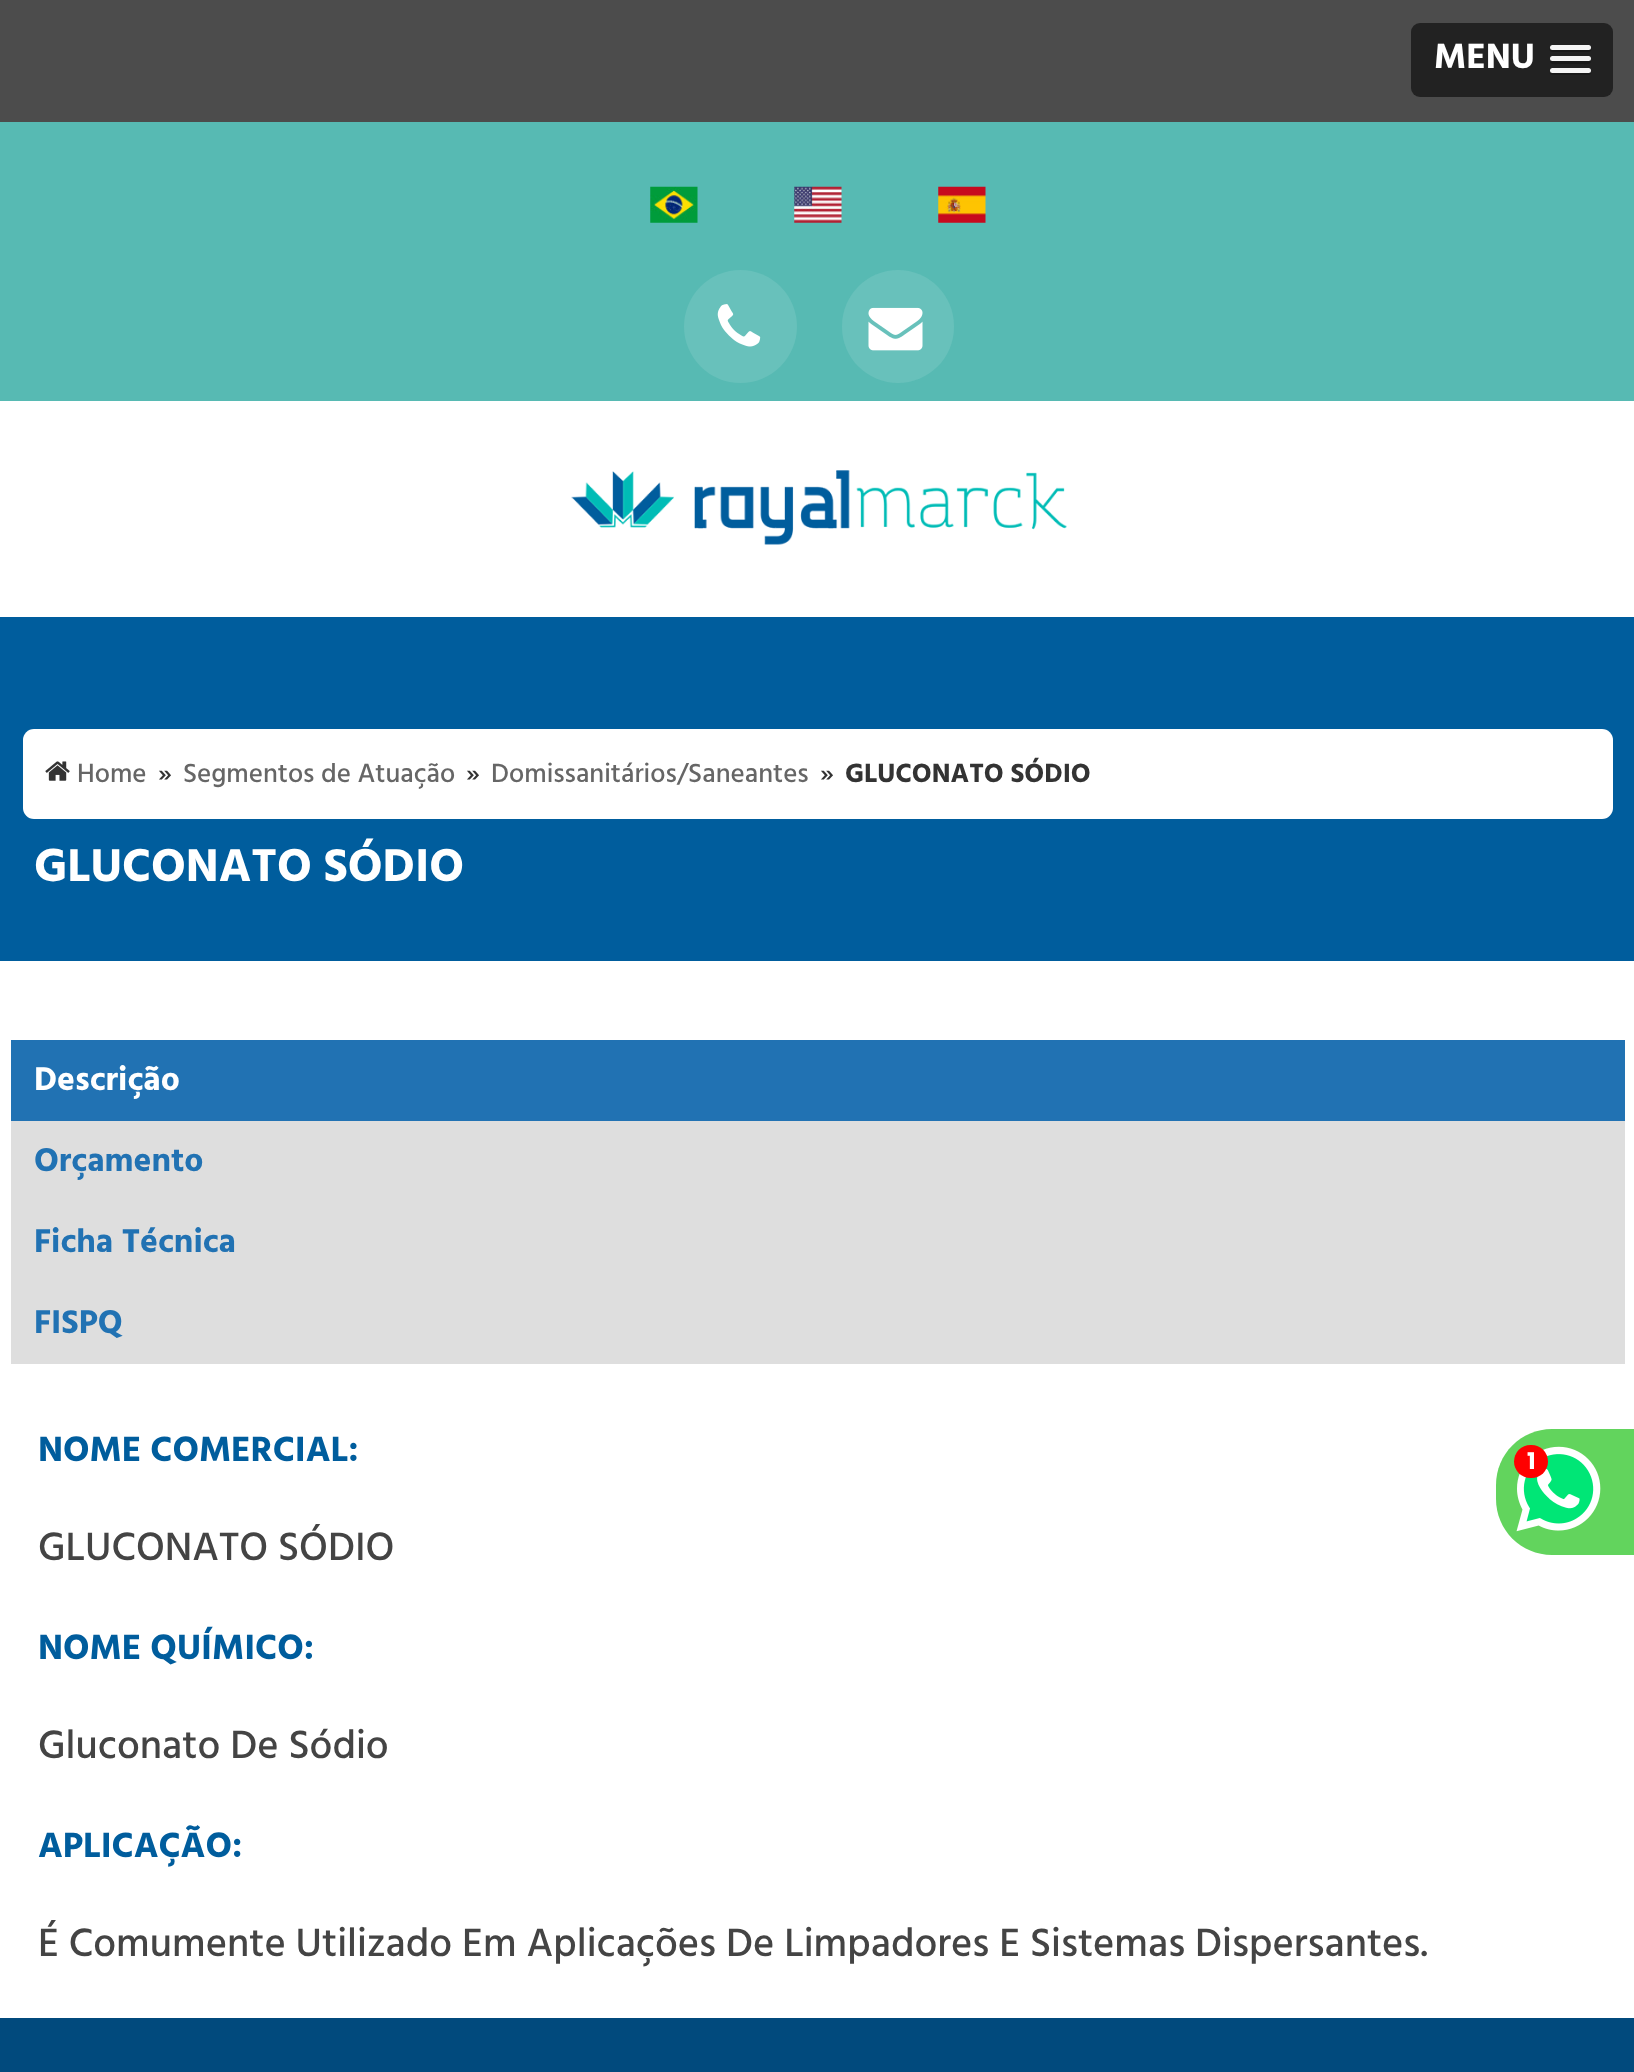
<!DOCTYPE html>
<meta charset="utf-8">
<style>body { margin: 0 } canvas { display: block }</style>
<canvas id="canvas" width="1634" height="2072"></canvas>
<script type="module">
  const canvas = document.getElementById("canvas");
  const ctx = canvas.getContext("2d");
  ctx.miterLimit = 4;
  ctx.fontKerning = "normal";
  async function loadImage(src) {
    const img = new Image();
    img.src = src;
    await img.decode();
    return img;
  }

  ctx.fillStyle = "#ffffff";
  ctx.fillRect(0, 0, 1634, 2072);
  ctx.fillStyle = "#4c4c4c";
  ctx.fillRect(0, 0, 1634, 122);
  ctx.fillStyle = "#222222";
  ctx.beginPath();
  ctx.roundRect(1411, 23, 202, 74, 9);
  ctx.fill();
  ctx.font = "bold 36px Hind";
  ctx.fillStyle = "#ffffff";
  ctx.fillText("MENU", 1434, 68);
  ctx.fillStyle = "#1a1a1a";
  ctx.beginPath();
  ctx.moveTo(1550, 48);
  ctx.bezierCurveTo(1547, 53, 1558, 52, 1558, 52);
  ctx.lineTo(1582, 52);
  ctx.bezierCurveTo(1583, 52, 1594, 53, 1591, 48);
  ctx.bezierCurveTo(1590, 49, 1589, 50, 1588, 50);
  ctx.lineTo(1552, 50);
  ctx.bezierCurveTo(1552, 50, 1551, 49, 1550, 48);
  ctx.closePath();
  ctx.fill();
  ctx.fillStyle = "#f5f5f5";
  ctx.beginPath();
  ctx.roundRect(1550, 45, 41, 5, 2.5);
  ctx.fill();
  ctx.fillStyle = "#1a1a1a";
  ctx.beginPath();
  ctx.moveTo(1551, 60);
  ctx.lineTo(1550, 62);
  ctx.bezierCurveTo(1551, 65, 1557, 64, 1558, 64);
  ctx.lineTo(1582, 64);
  ctx.bezierCurveTo(1584, 64, 1590, 65, 1591, 62);
  ctx.lineTo(1590, 60);
  ctx.lineTo(1589, 61);
  ctx.lineTo(1552, 61);
  ctx.closePath();
  ctx.fill();
  ctx.fillStyle = "#f5f5f5";
  ctx.beginPath();
  ctx.roundRect(1550, 56, 41, 5, 2.5);
  ctx.fill();
  ctx.fillStyle = "#1a1a1a";
  ctx.beginPath();
  ctx.moveTo(1551, 71);
  ctx.bezierCurveTo(1546, 76, 1558, 75, 1558, 75);
  ctx.lineTo(1582, 75);
  ctx.bezierCurveTo(1583, 75, 1595, 76, 1590, 71);
  ctx.lineTo(1589, 72);
  ctx.lineTo(1552, 72);
  ctx.closePath();
  ctx.fill();
  ctx.fillStyle = "#f5f5f5";
  ctx.beginPath();
  ctx.roundRect(1550, 68, 41, 5, 2.5);
  ctx.fill();
  ctx.fillStyle = "#57bab3";
  ctx.fillRect(0, 122, 1634, 279);
  ctx.drawImage(await loadImage("img1.png"), 650, 186, 48, 37);
  ctx.drawImage(await loadImage("img2.png"), 794, 186, 48, 37);
  ctx.drawImage(await loadImage("img3.png"), 938, 186, 48, 37);
  ctx.fillStyle = "#68c1bb";
  ctx.beginPath();
  ctx.arc(740.5, 326.5, 56.5, 0, Math.PI * 2);
  ctx.fill();
  ctx.drawImage(await loadImage("img4.png"), 717, 304, 44, 43);
  ctx.beginPath();
  ctx.roundRect(842, 270, 112, 113, 56);
  ctx.fill();
  ctx.drawImage(await loadImage("img5.png"), 868, 307, 55, 44);
  ctx.drawImage(await loadImage("img6.png"), 571, 470, 496, 75);
  ctx.fillStyle = "#005d9d";
  ctx.fillRect(0, 617, 1634, 344);
  ctx.fillStyle = "#ffffff";
  ctx.beginPath();
  ctx.roundRect(23, 729, 1590, 90, 11);
  ctx.fill();
  ctx.drawImage(await loadImage("img7.png"), 45, 761, 25, 20);
  ctx.font = "500 27px Hind";
  ctx.fillStyle = "#666666";
  ctx.fillText("Home", 77, 782);
  ctx.fillStyle = "#333333";
  ctx.fillText("»", 158, 782);
  ctx.fillStyle = "#666666";
  ctx.fillText("Segmentos de Atuação", 183, 782);
  ctx.fillStyle = "#333333";
  ctx.fillText("»", 466, 782);
  ctx.fillStyle = "#666666";
  ctx.fillText("Domissanitários/Saneantes", 491, 782);
  ctx.fillStyle = "#333333";
  ctx.fillText("»", 820, 782);
  ctx.font = "bold 27px Hind";
  ctx.fillText("GLUCONATO SÓDIO", 845, 782);
  ctx.font = "bold 47.25px Hind";
  ctx.fillStyle = "#ffffff";
  ctx.fillText("GLUCONATO SÓDIO", 34, 881);
  ctx.fillStyle = "#2172b3";
  ctx.fillRect(11, 1040, 1614, 81);
  ctx.font = "bold 33.75px Hind";
  ctx.fillStyle = "#ffffff";
  ctx.fillText("Descrição", 34, 1090);
  ctx.fillStyle = "#dedede";
  ctx.fillRect(11, 1121, 1614, 243);
  ctx.fillStyle = "#2172b3";
  ctx.fillText("Orçamento", 34, 1171);
  ctx.fillText("Ficha Técnica", 34, 1252);
  ctx.fillText("FISPQ", 34, 1333);
  ctx.font = "bold 36px Hind";
  ctx.fillStyle = "#005d9d";
  ctx.fillText("NOME COMERCIAL:", 38, 1461);
  ctx.font = "500 40.5px Hind";
  ctx.fillStyle = "#444444";
  ctx.fillText("GLUCONATO SÓDIO", 38, 1560);
  ctx.font = "bold 36px Hind";
  ctx.fillStyle = "#005d9d";
  ctx.fillText("NOME QUÍMICO:", 38, 1659);
  ctx.font = "500 40.5px Hind";
  ctx.fillStyle = "#444444";
  ctx.fillText("Gluconato De Sódio", 38, 1758);
  ctx.font = "bold 36px Hind";
  ctx.fillStyle = "#005d9d";
  ctx.fillText("APLICAÇÃO:", 38, 1857);
  ctx.font = "500 40.5px Hind";
  ctx.fillStyle = "#444444";
  ctx.fillText("É Comumente Utilizado Em Aplicações De Limpadores E Sistemas Dispersantes.", 38, 1956);
  ctx.fillStyle = "#62d45d";
  ctx.beginPath();
  ctx.moveTo(1552, 1429);
  ctx.lineTo(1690, 1429);
  ctx.lineTo(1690, 1555);
  ctx.lineTo(1552, 1555);
  ctx.bezierCurveTo(1521, 1555, 1496, 1530, 1496, 1499);
  ctx.lineTo(1496, 1485);
  ctx.bezierCurveTo(1496, 1454, 1521, 1429, 1552, 1429);
  ctx.closePath();
  ctx.fill();
  ctx.drawImage(await loadImage("img8.png"), 1516, 1446, 85, 86);
  ctx.fillStyle = "#ff0000";
  ctx.beginPath();
  ctx.roundRect(1514, 1445, 34, 33, 16.5);
  ctx.fill();
  ctx.font = "bold 23px Poppins";
  ctx.fillStyle = "#ffffff";
  ctx.fillText("1", 1527, 1469);
  ctx.fillStyle = "#014a7d";
  ctx.fillRect(0, 2018, 1634, 54);
</script>
